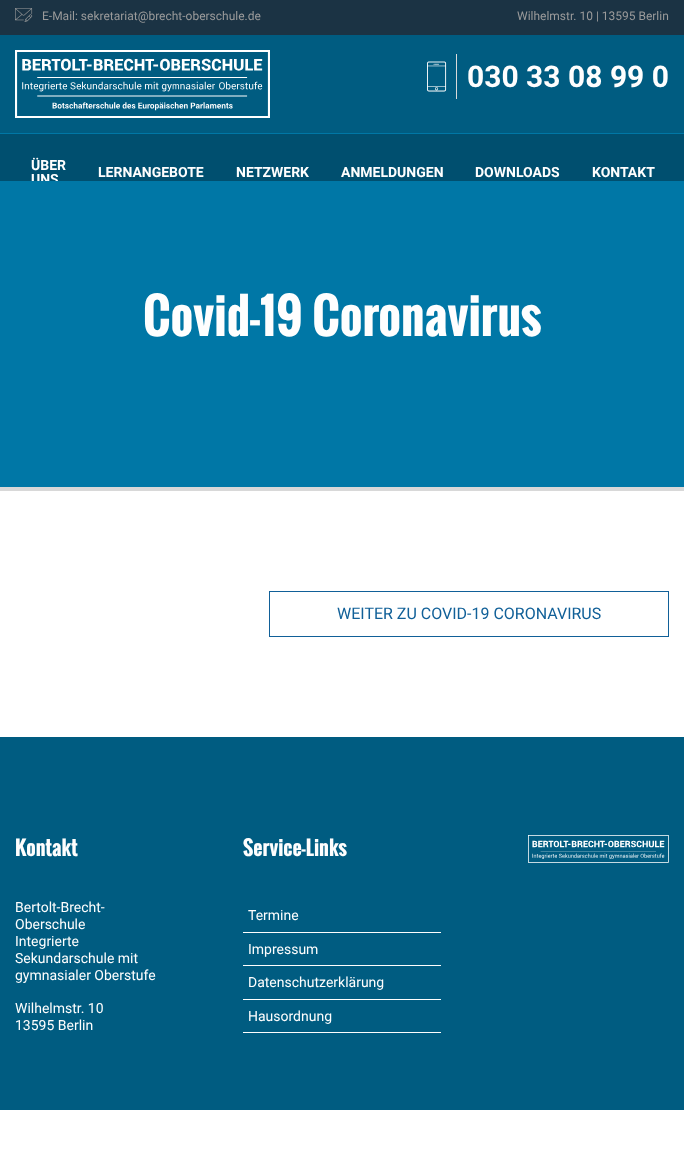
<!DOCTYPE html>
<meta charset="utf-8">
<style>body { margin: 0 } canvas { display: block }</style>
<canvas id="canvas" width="684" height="1149"></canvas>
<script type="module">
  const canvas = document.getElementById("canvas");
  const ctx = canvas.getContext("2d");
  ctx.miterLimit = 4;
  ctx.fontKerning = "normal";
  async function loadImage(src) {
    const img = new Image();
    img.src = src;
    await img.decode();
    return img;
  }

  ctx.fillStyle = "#ffffff";
  ctx.fillRect(0, 0, 684, 1149);
  ctx.fillStyle = "#1b3344";
  ctx.fillRect(0, 0, 684, 35);
  ctx.drawImage(await loadImage("img1.png"), 15, 8, 18, 14);
  ctx.font = "12px Roboto";
  ctx.fillStyle = "#9b9b9b";
  ctx.fillText("E-Mail: sekretariat@brecht-oberschule.de", 42, 20);
  ctx.fillText("Wilhelmstr. 10 | 13595 Berlin", 517, 20);
  ctx.fillStyle = "#005c81";
  ctx.fillRect(0, 35, 684, 98);
  ctx.fillStyle = "#0077a6";
  ctx.fillRect(0, 133, 684, 1);
  ctx.drawImage(await loadImage("img2.png"), 15, 50, 255, 68);
  ctx.fillStyle = "#dadada";
  ctx.fillRect(456, 54, 1, 45);
  ctx.drawImage(await loadImage("img3.png"), 427, 61, 20, 31);
  ctx.font = "bold 30px Roboto";
  ctx.fillStyle = "#fefefe";
  ctx.fillText("030 33 08 99 0", 467, 87);
  ctx.fillStyle = "#004f6f";
  ctx.fillRect(0, 134, 684, 47);
  ctx.font = "bold 14px Roboto";
  ctx.fillStyle = "#fefefe";
  ctx.fillText("ÜBER", 31, 170);
  ctx.fillText("UNS", 31, 184);
  ctx.fillText("LERNANGEBOTE", 98, 177);
  ctx.fillText("NETZWERK", 236, 177);
  ctx.fillText("ANMELDUNGEN", 341, 177);
  ctx.fillText("DOWNLOADS", 475, 177);
  ctx.fillText("KONTAKT", 592, 177);
  ctx.fillStyle = "#0077a6";
  ctx.fillRect(0, 181, 684, 306);
  ctx.fillStyle = "#d8d8d8";
  ctx.fillRect(0, 487, 684, 4);
  ctx.font = "bold 48px Oswald";
  ctx.fillStyle = "#fefefe";
  ctx.fillText("Covid-19 Coronavirus", 143, 336);
  ctx.strokeStyle = "#116098";
  ctx.strokeRect(269.5, 591.5, 399, 45);
  ctx.font = "16px Roboto";
  ctx.fillStyle = "#116098";
  ctx.fillText("WEITER ZU COVID-19 CORONAVIRUS", 337, 619);
  ctx.fillStyle = "#005c81";
  ctx.fillRect(0, 737, 684, 373);
  ctx.font = "bold 20px Oswald";
  ctx.fillStyle = "#fefefe";
  ctx.fillText("Kontakt", 15, 856);
  ctx.font = "14px Roboto";
  ctx.fillText("Bertolt-Brecht-", 15, 912);
  ctx.fillText("Oberschule", 15, 929);
  ctx.fillText("Integrierte", 15, 946);
  ctx.fillText("Sekundarschule mit", 15, 963);
  ctx.fillText("gymnasialer Oberstufe", 15, 980);
  ctx.fillText("Wilhelmstr. 10", 15, 1013);
  ctx.fillText("13595 Berlin", 15, 1030);
  ctx.font = "bold 20px Oswald";
  ctx.fillText("Service-Links", 243, 856);
  ctx.fillRect(243, 932, 198, 1);
  ctx.font = "14px Roboto";
  ctx.fillText("Termine", 248, 920);
  ctx.fillRect(243, 965, 198, 1);
  ctx.fillText("Impressum", 248, 954);
  ctx.fillRect(243, 999, 198, 1);
  ctx.fillText("Datenschutzerklärung", 248, 987);
  ctx.fillRect(243, 1032, 198, 1);
  ctx.fillText("Hausordnung", 248, 1021);
  ctx.drawImage(await loadImage("img4.png"), 528, 835, 141, 28);
</script>
